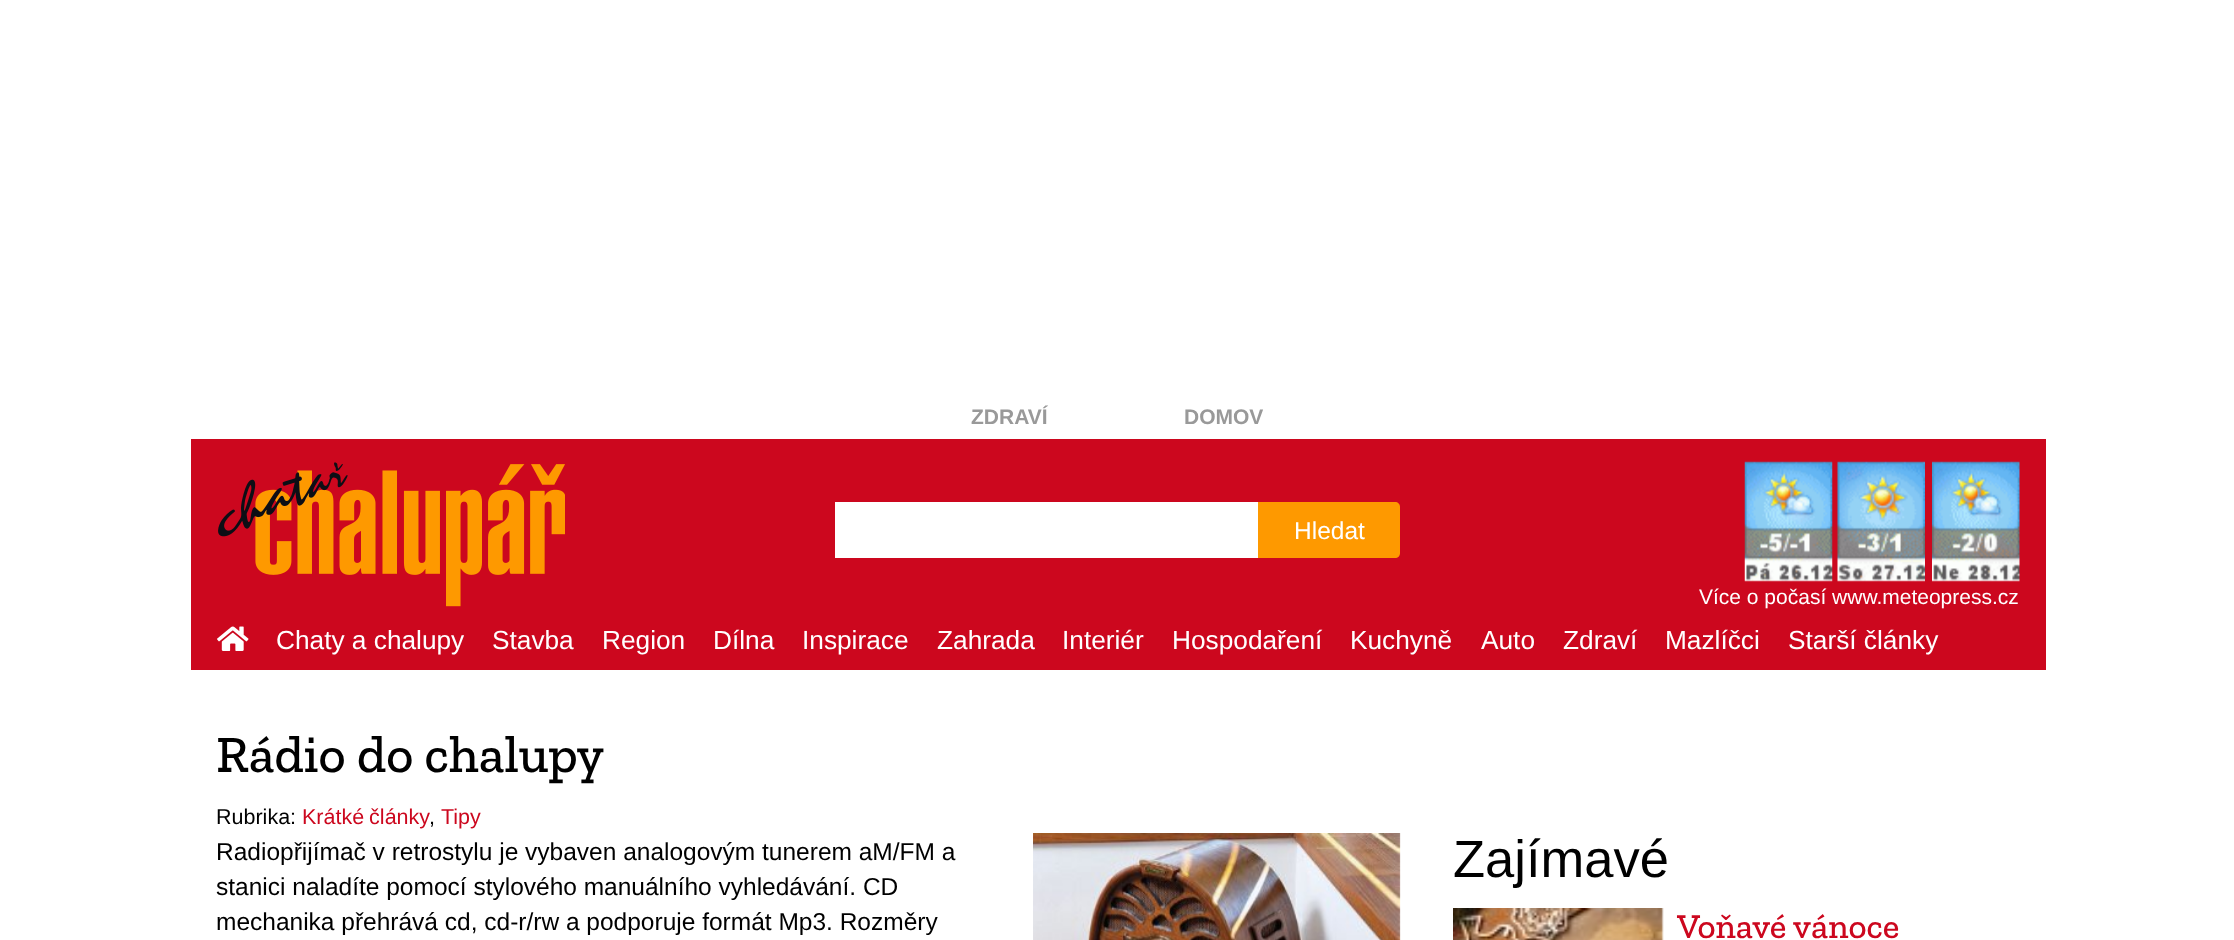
<svg xmlns="http://www.w3.org/2000/svg" width="2234" height="940">
<rect width="100%" height="100%" fill="#fff"/>
<rect x="191" y="439" width="1855" height="231" fill="#cc071e"/>
<text x="971" y="424" style="font-family:Liberation Sans;font-size:21px;font-weight:bold;fill:#999">ZDRAVÍ</text>
<text x="1184" y="424" style="font-family:Liberation Sans;font-size:21px;font-weight:bold;fill:#999">DOMOV</text>
<image x="218" y="462" width="347" height="145" href="media/1.png"/>
<rect x="835" y="502" width="423" height="56" fill="#fff"/>
<path d="M1258 502h137c3 0 5 2 5 5v46c0 3-2 5-5 5h-137z" fill="#fe9900"/>
<text x="1294" y="539" style="font-family:Liberation Sans;font-size:24.5px;fill:#fff">Hledat</text>
<image x="1744" y="461" width="89" height="121" href="media/2.png"/>
<image x="1837" y="461" width="88" height="121" href="media/3.png"/>
<image x="1932" y="461" width="88" height="121" href="media/4.png"/>
<text x="1699" y="604" style="font-family:Liberation Sans;font-size:21px;fill:#fff">Více o počasí www.meteopress.cz</text>
<image x="217" y="626" width="32" height="25" href="media/5.png"/>
<text x="276" y="649" style="font-family:Liberation Sans;font-size:26.25px;fill:#fff">Chaty a chalupy</text>
<text x="492" y="649" style="font-family:Liberation Sans;font-size:26.25px;fill:#fff">Stavba</text>
<text x="602" y="649" style="font-family:Liberation Sans;font-size:26.25px;fill:#fff">Region</text>
<text x="713" y="649" style="font-family:Liberation Sans;font-size:26.25px;fill:#fff">Dílna</text>
<text x="802" y="649" style="font-family:Liberation Sans;font-size:26.25px;fill:#fff">Inspirace</text>
<text x="937" y="649" style="font-family:Liberation Sans;font-size:26.25px;fill:#fff">Zahrada</text>
<text x="1062" y="649" style="font-family:Liberation Sans;font-size:26.25px;fill:#fff">Interiér</text>
<text x="1172" y="649" style="font-family:Liberation Sans;font-size:26.25px;fill:#fff">Hospodaření</text>
<text x="1350" y="649" style="font-family:Liberation Sans;font-size:26.25px;fill:#fff">Kuchyně</text>
<text x="1481" y="649" style="font-family:Liberation Sans;font-size:26.25px;fill:#fff">Auto</text>
<text x="1563" y="649" style="font-family:Liberation Sans;font-size:26.25px;fill:#fff">Zdraví</text>
<text x="1665" y="649" style="font-family:Liberation Sans;font-size:26.25px;fill:#fff">Mazlíčci</text>
<text x="1788" y="649" style="font-family:Liberation Sans;font-size:26.25px;fill:#fff">Starší články</text>
<text x="216" y="772" style="font-family:Zilla Slab;font-size:52.5px;font-weight:500;fill:#000">Rádio do chalupy</text>
<text x="216" y="824" style="font-family:Liberation Sans;font-size:21.5px;fill:#000">Rubrika:</text>
<text x="302" y="824" word-spacing="-1" style="font-family:Liberation Sans;font-size:21.5px;fill:#cc071e">Krátké články</text>
<text x="429" y="824" style="font-family:Liberation Sans;font-size:21.5px;fill:#000">,</text>
<text x="441" y="824" style="font-family:Liberation Sans;font-size:21.5px;fill:#cc071e">Tipy</text>
<text x="216" y="860" style="font-family:Liberation Sans;font-size:24.5px;fill:#000">Radiopřijímač v retrostylu je vybaven analogovým tunerem aM/FM a</text>
<image x="1033" y="833" width="368" height="107" href="media/6.png"/>
<text x="216" y="895" style="font-family:Liberation Sans;font-size:24.5px;fill:#000">stanici naladíte pomocí stylového manuálního vyhledávání. CD</text>
<text x="216" y="930" style="font-family:Liberation Sans;font-size:24.5px;fill:#000">mechanika přehrává cd, cd-r/rw a podporuje formát Mp3. Rozměry</text>
<text x="1453" y="877" style="font-family:Liberation Sans;font-size:52.5px;fill:#000">Zajímavé</text>
<image x="1453" y="908" width="211" height="32" href="media/7.png"/>
<text x="1677" y="938" style="font-family:Zilla Slab;font-size:35px;font-weight:500;fill:#cc071e">Voňavé vánoce</text>
</svg>
